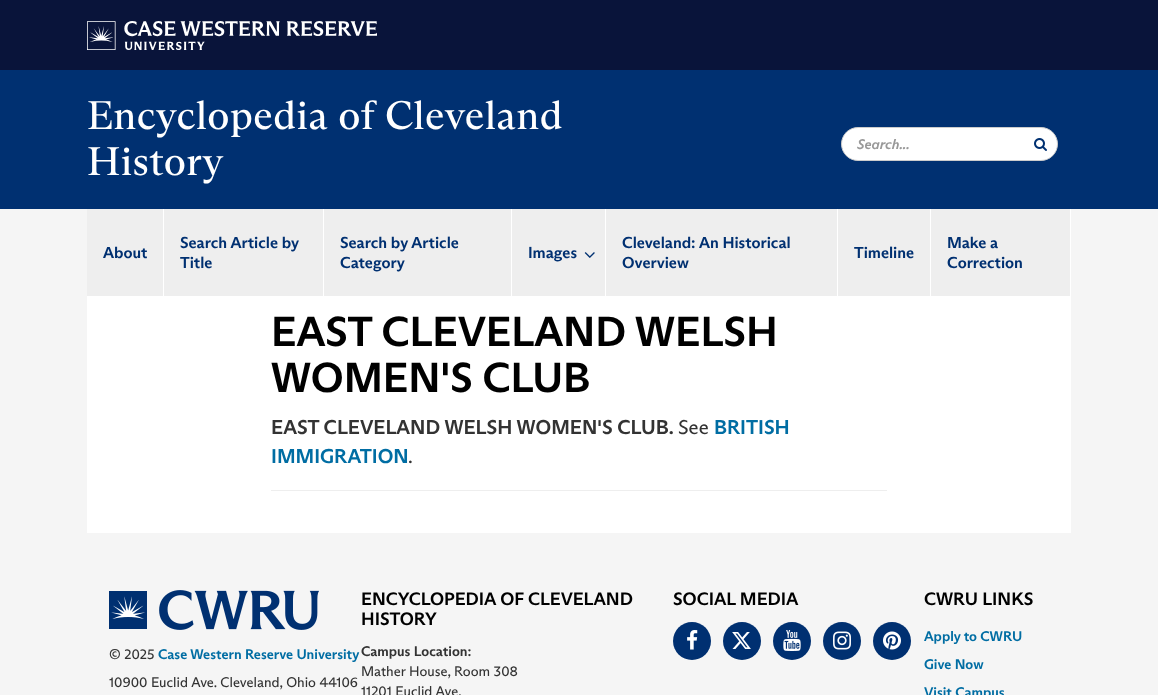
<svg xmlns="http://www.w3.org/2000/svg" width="1158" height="695">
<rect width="100%" height="100%" fill="#f5f5f5"/>
<rect width="1158" height="70" fill="#09143a"/>
<image x="87" y="21" width="290" height="29" href="media/1.png"/>
<rect y="70" width="1158" height="139" fill="#003071"/>
<text x="87" y="129" style="font-family:'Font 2';font-size:40px;letter-spacing:0.4px;fill:#fff">Encyclopedia of Cleveland</text>
<text x="87" y="175" style="font-family:'Font 2';font-size:40px;letter-spacing:0.4px;fill:#fff">History</text>
<rect x="841.5" y="127.5" width="216" height="33" rx="16.5" fill="#fff" stroke="#ccc"/>
<text x="857" y="149" style="font-family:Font;font-size:14px;font-weight:bold;font-style:italic;fill:#999">Search...</text>
<image x="1034" y="138" width="13" height="13" href="media/2.png"/>
<rect x="87" y="209" width="983" height="87" fill="#eee"/>
<rect x="163" y="209" width="1" height="87" fill="#fff"/>
<text x="103" y="258" style="font-family:Font;font-size:16px;font-weight:bold;fill:#003071">About</text>
<rect x="323" y="209" width="1" height="87" fill="#fff"/>
<text x="180" y="248" style="font-family:Font;font-size:16px;font-weight:bold;fill:#003071">Search Article by</text>
<text x="180" y="268" style="font-family:Font;font-size:16px;font-weight:bold;fill:#003071">Title</text>
<rect x="511" y="209" width="1" height="87" fill="#fff"/>
<text x="340" y="248" style="font-family:Font;font-size:16px;font-weight:bold;fill:#003071">Search by Article</text>
<text x="340" y="268" style="font-family:Font;font-size:16px;font-weight:bold;fill:#003071">Category</text>
<rect x="605" y="209" width="1" height="87" fill="#fff"/>
<text x="528" y="258" style="font-family:Font;font-size:16px;font-weight:bold;fill:#003071">Images</text>
<image x="584" y="252" width="11" height="6" href="media/3.png"/>
<rect x="837" y="209" width="1" height="87" fill="#fff"/>
<text x="622" y="248" style="font-family:Font;font-size:16px;font-weight:bold;fill:#003071">Cleveland: An Historical</text>
<text x="622" y="268" style="font-family:Font;font-size:16px;font-weight:bold;fill:#003071">Overview</text>
<rect x="930" y="209" width="1" height="87" fill="#fff"/>
<text x="854" y="258" style="font-family:Font;font-size:16px;font-weight:bold;fill:#003071">Timeline</text>
<rect x="1070" y="209" width="1" height="87" fill="#fff"/>
<text x="947" y="248" style="font-family:Font;font-size:16px;font-weight:bold;fill:#003071">Make a</text>
<text x="947" y="268" style="font-family:Font;font-size:16px;font-weight:bold;fill:#003071">Correction</text>
<rect x="87" y="296" width="984" height="237" fill="#fff"/>
<text x="271" y="346" style="font-family:Font;font-size:42px;font-weight:bold;fill:#000">EAST CLEVELAND WELSH</text>
<text x="271" y="392" style="font-family:Font;font-size:42px;font-weight:bold;fill:#000">WOMEN'S CLUB</text>
<text x="271" y="434" style="font-family:Font;font-size:20px;font-weight:bold;fill:#333">EAST CLEVELAND WELSH WOMEN'S CLUB.</text>
<text x="678" y="434" style="font-family:Font;font-size:20px;fill:#333">See</text>
<text x="714" y="434" style="font-family:Font;font-size:20px;font-weight:bold;fill:#006da3">BRITISH</text>
<text x="271" y="463" style="font-family:Font;font-size:20px;font-weight:bold;fill:#006da3">IMMIGRATION</text>
<text x="408" y="463" style="font-family:Font;font-size:20px;fill:#333">.</text>
<rect x="271" y="490" width="616" height="1" fill="#eee"/>
<image x="109" y="590" width="210" height="40" href="media/4.png"/>
<text x="109" y="659" style="font-family:Font;font-size:14px;fill:#333">© 2025</text>
<text x="158" y="659" style="font-family:Font;font-size:14px;font-weight:bold;fill:#006da3">Case Western Reserve University</text>
<text x="109" y="687" style="font-family:Font;font-size:14px;fill:#333">10900 Euclid Ave. Cleveland, Ohio 44106</text>
<text x="361" y="605" style="font-family:Font;font-size:18px;font-weight:bold;fill:#000">ENCYCLOPEDIA OF CLEVELAND</text>
<text x="361" y="625" style="font-family:Font;font-size:18px;font-weight:bold;fill:#000">HISTORY</text>
<text x="361" y="656" style="font-family:Font;font-size:14px;font-weight:bold;fill:#333">Campus Location:</text>
<text x="361" y="676" style="font-family:Font;font-size:14px;fill:#333">Mather House, Room 308</text>
<text x="361" y="696" style="font-family:Font;font-size:14px;fill:#333">11201 Euclid Ave.</text>
<text x="673" y="605" style="font-family:Font;font-size:18px;font-weight:bold;fill:#000">SOCIAL MEDIA</text>
<circle cx="692" cy="641" r="19" fill="#003071"/>
<image x="687" y="630" width="11" height="20" href="media/5.png"/>
<circle cx="742" cy="641" r="19" fill="#003071"/>
<image x="732" y="632" width="19" height="17" href="media/6.png"/>
<circle cx="792" cy="641" r="19" fill="#003071"/>
<image x="783" y="630" width="18" height="21" href="media/7.png"/>
<circle cx="842" cy="641" r="19" fill="#003071"/>
<image x="833" y="631" width="18" height="19" href="media/8.png"/>
<circle cx="892" cy="641" r="19" fill="#003071"/>
<image x="883" y="631" width="18" height="19" href="media/9.png"/>
<text x="924" y="605" style="font-family:Font;font-size:18px;font-weight:bold;fill:#000">CWRU LINKS</text>
<text x="924" y="641" style="font-family:Font;font-size:14px;font-weight:bold;fill:#006da3">Apply to CWRU</text>
<text x="924" y="669" style="font-family:Font;font-size:14px;font-weight:bold;fill:#006da3">Give Now</text>
<text x="924" y="697" style="font-family:Font;font-size:14px;font-weight:bold;fill:#006da3">Visit Campus</text>
</svg>
